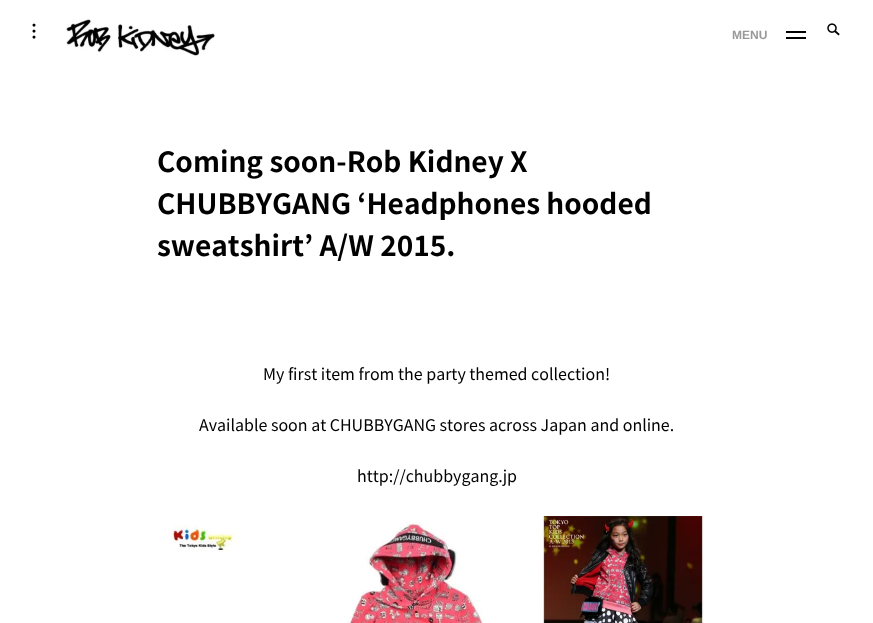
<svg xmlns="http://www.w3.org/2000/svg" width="873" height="623">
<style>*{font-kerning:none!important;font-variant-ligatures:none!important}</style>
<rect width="100%" height="100%" fill="#fff"/>
<image x="66" y="19" width="150" height="38" href="media/1.png"/>
<image x="32" y="23" width="4" height="16" href="media/2.png"/>
<text x="732" y="39" style="font-family:Liberation Sans;font-size:12px;font-weight:bold;fill:#999">MENU</text>
<rect x="786" y="31" width="20" height="2" fill="#000"/>
<rect x="786" y="37" width="20" height="2" fill="#000"/>
<image x="827" y="23" width="13" height="13" href="media/3.png"/>
<text x="157" y="172" style="font-family:Noto Sans JP;font-size:28px;font-weight:bold;fill:#000">Coming soon-Rob Kidney X</text>
<text x="157" y="214" style="font-family:Noto Sans JP;font-size:28px;font-weight:bold;fill:#000">CHUBBYGANG ‘Headphones hooded</text>
<text x="157" y="256" style="font-family:Noto Sans JP;font-size:28px;font-weight:bold;fill:#000">sweatshirt’ A/W 2015.</text>
<text x="263" y="380" style="font-family:Noto Sans JP;font-size:16px;fill:#000">My first item from the party themed collection!</text>
<text x="199" y="431" style="font-family:Noto Sans JP;font-size:16px;fill:#000">Available soon at CHUBBYGANG stores across Japan and online.</text>
<text x="357" y="482" style="font-family:Noto Sans JP;font-size:16px;fill:#000">http://chubbygang.jp</text>
<image x="171" y="521" width="313" height="102" href="media/4.png"/>
<image x="541" y="516" width="163" height="107" href="media/5.png"/>
</svg>
